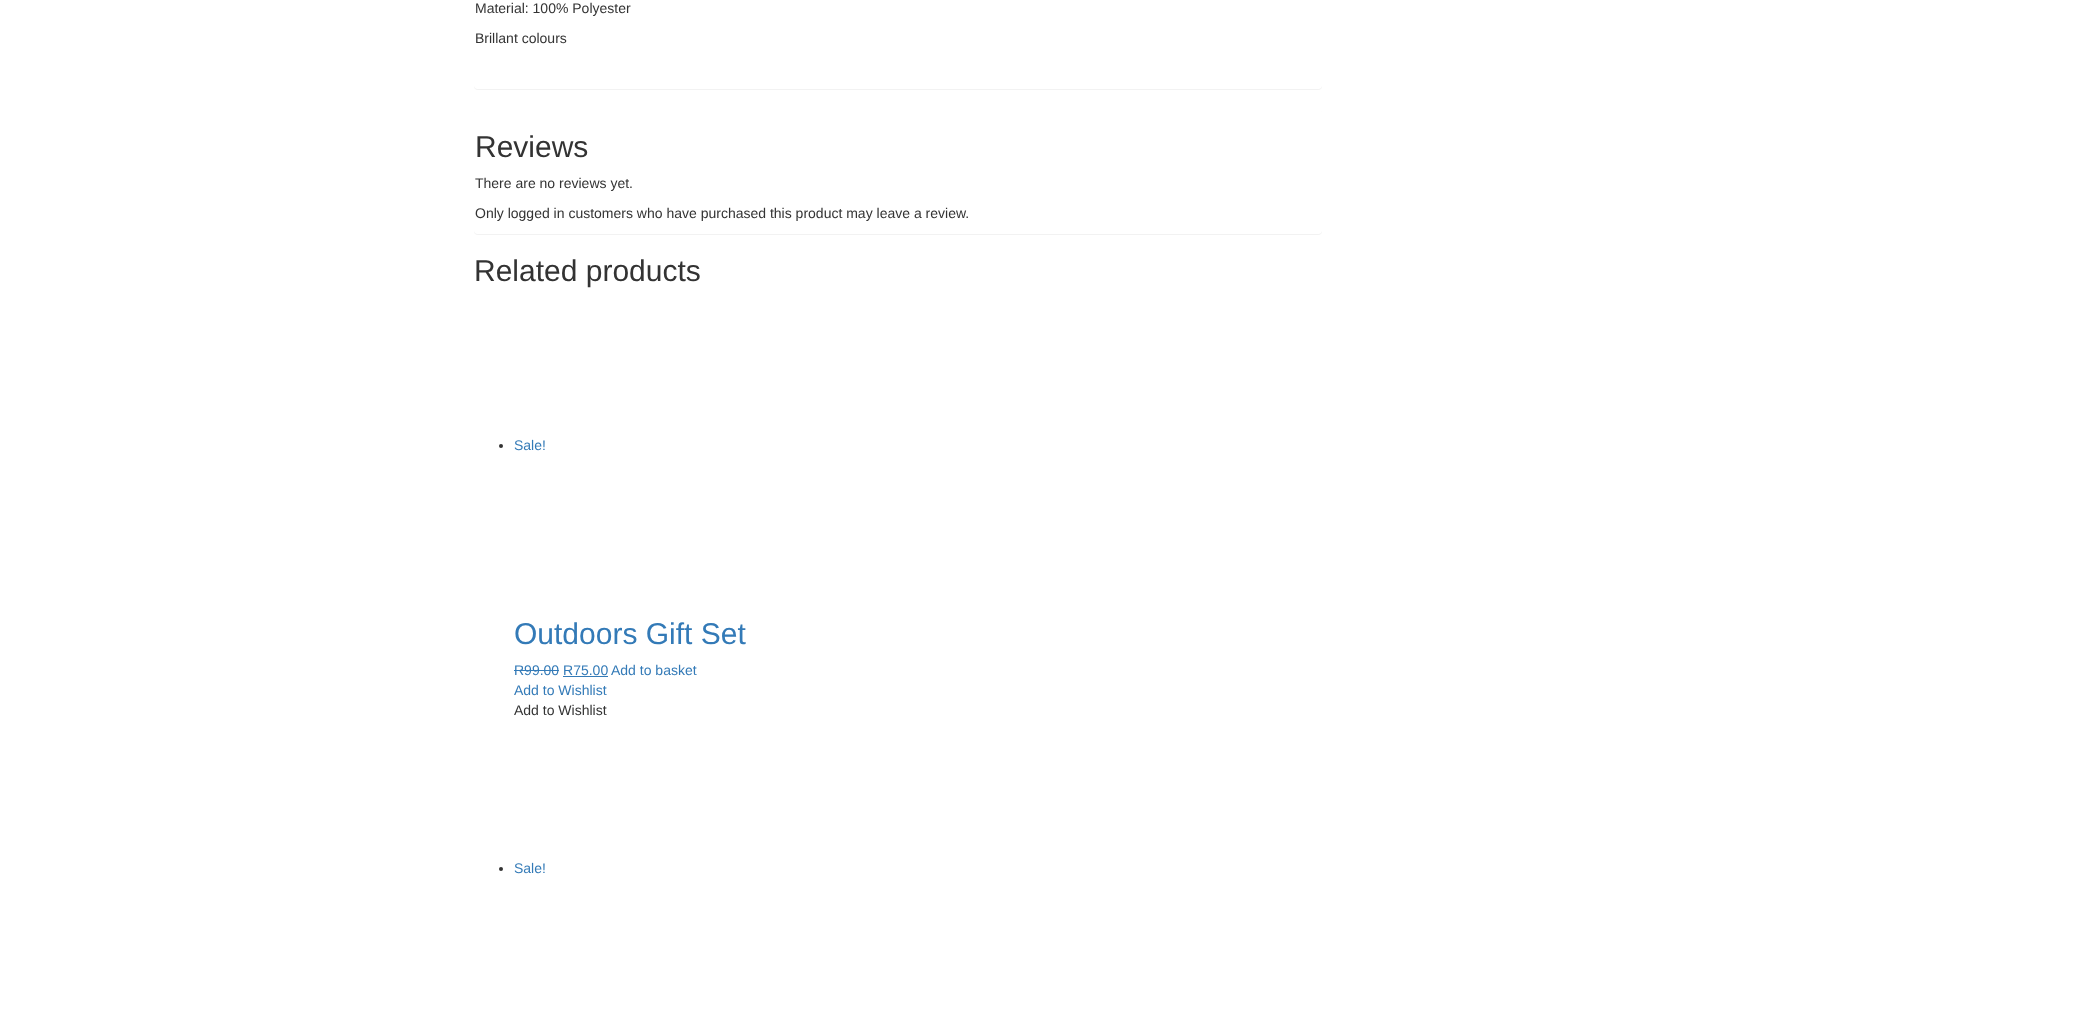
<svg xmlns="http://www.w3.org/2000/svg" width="2088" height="1010">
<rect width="100%" height="100%" fill="#fff"/>
<rect x="474" y="-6" width="848" height="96" rx="4" fill="#0000000d" filter="blur(0.5px)"/>
<rect x="474" y="-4" width="848" height="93" rx="4" fill="#fff"/>
<text x="475" y="13" style="font-family:Liberation Sans;font-size:14px;fill:#333">Material: 100% Polyester</text>
<text x="475" y="43" style="font-family:Liberation Sans;font-size:14px;fill:#333">Brillant colours</text>
<rect x="474" y="110" width="848" height="125" rx="4" fill="#0000000d" filter="blur(0.5px)"/>
<rect x="474" y="109" width="848" height="125" rx="4" fill="#fff"/>
<text x="475" y="157" style="font-family:Liberation Sans;font-size:30px;fill:#333">Reviews</text>
<text x="475" y="188" style="font-family:Liberation Sans;font-size:14px;fill:#333">There are no reviews yet.</text>
<text x="475" y="218" style="font-family:Liberation Sans;font-size:14px;fill:#333">Only logged in customers who have purchased this product may leave a review.</text>
<text x="474" y="281" style="font-family:Liberation Sans;font-size:30px;fill:#333">Related products</text>
<circle cx="501" cy="446" r="2" fill="#333"/>
<text x="514" y="450" style="font-family:Liberation Sans;font-size:14px;fill:#337ab7">Sale!</text>
<text x="514" y="644" style="font-family:Liberation Sans;font-size:30px;fill:#337ab7">Outdoors Gift Set</text>
<text x="514" y="675" style="font-family:Liberation Sans;font-size:14px;fill:#337ab7">R99.00 R75.00</text>
<rect x="514" y="670" width="45" height="1" fill="#337ab7"/>
<rect x="563" y="676" width="45" height="1" fill="#337ab7"/>
<text x="611" y="675" style="font-family:Liberation Sans;font-size:14px;fill:#337ab7">Add to basket</text>
<text x="514" y="695" style="font-family:Liberation Sans;font-size:14px;fill:#337ab7">Add to Wishlist</text>
<text x="514" y="715" style="font-family:Liberation Sans;font-size:14px;fill:#333">Add to Wishlist</text>
<circle cx="501" cy="869" r="2" fill="#333"/>
<text x="514" y="873" style="font-family:Liberation Sans;font-size:14px;fill:#337ab7">Sale!</text>
</svg>
